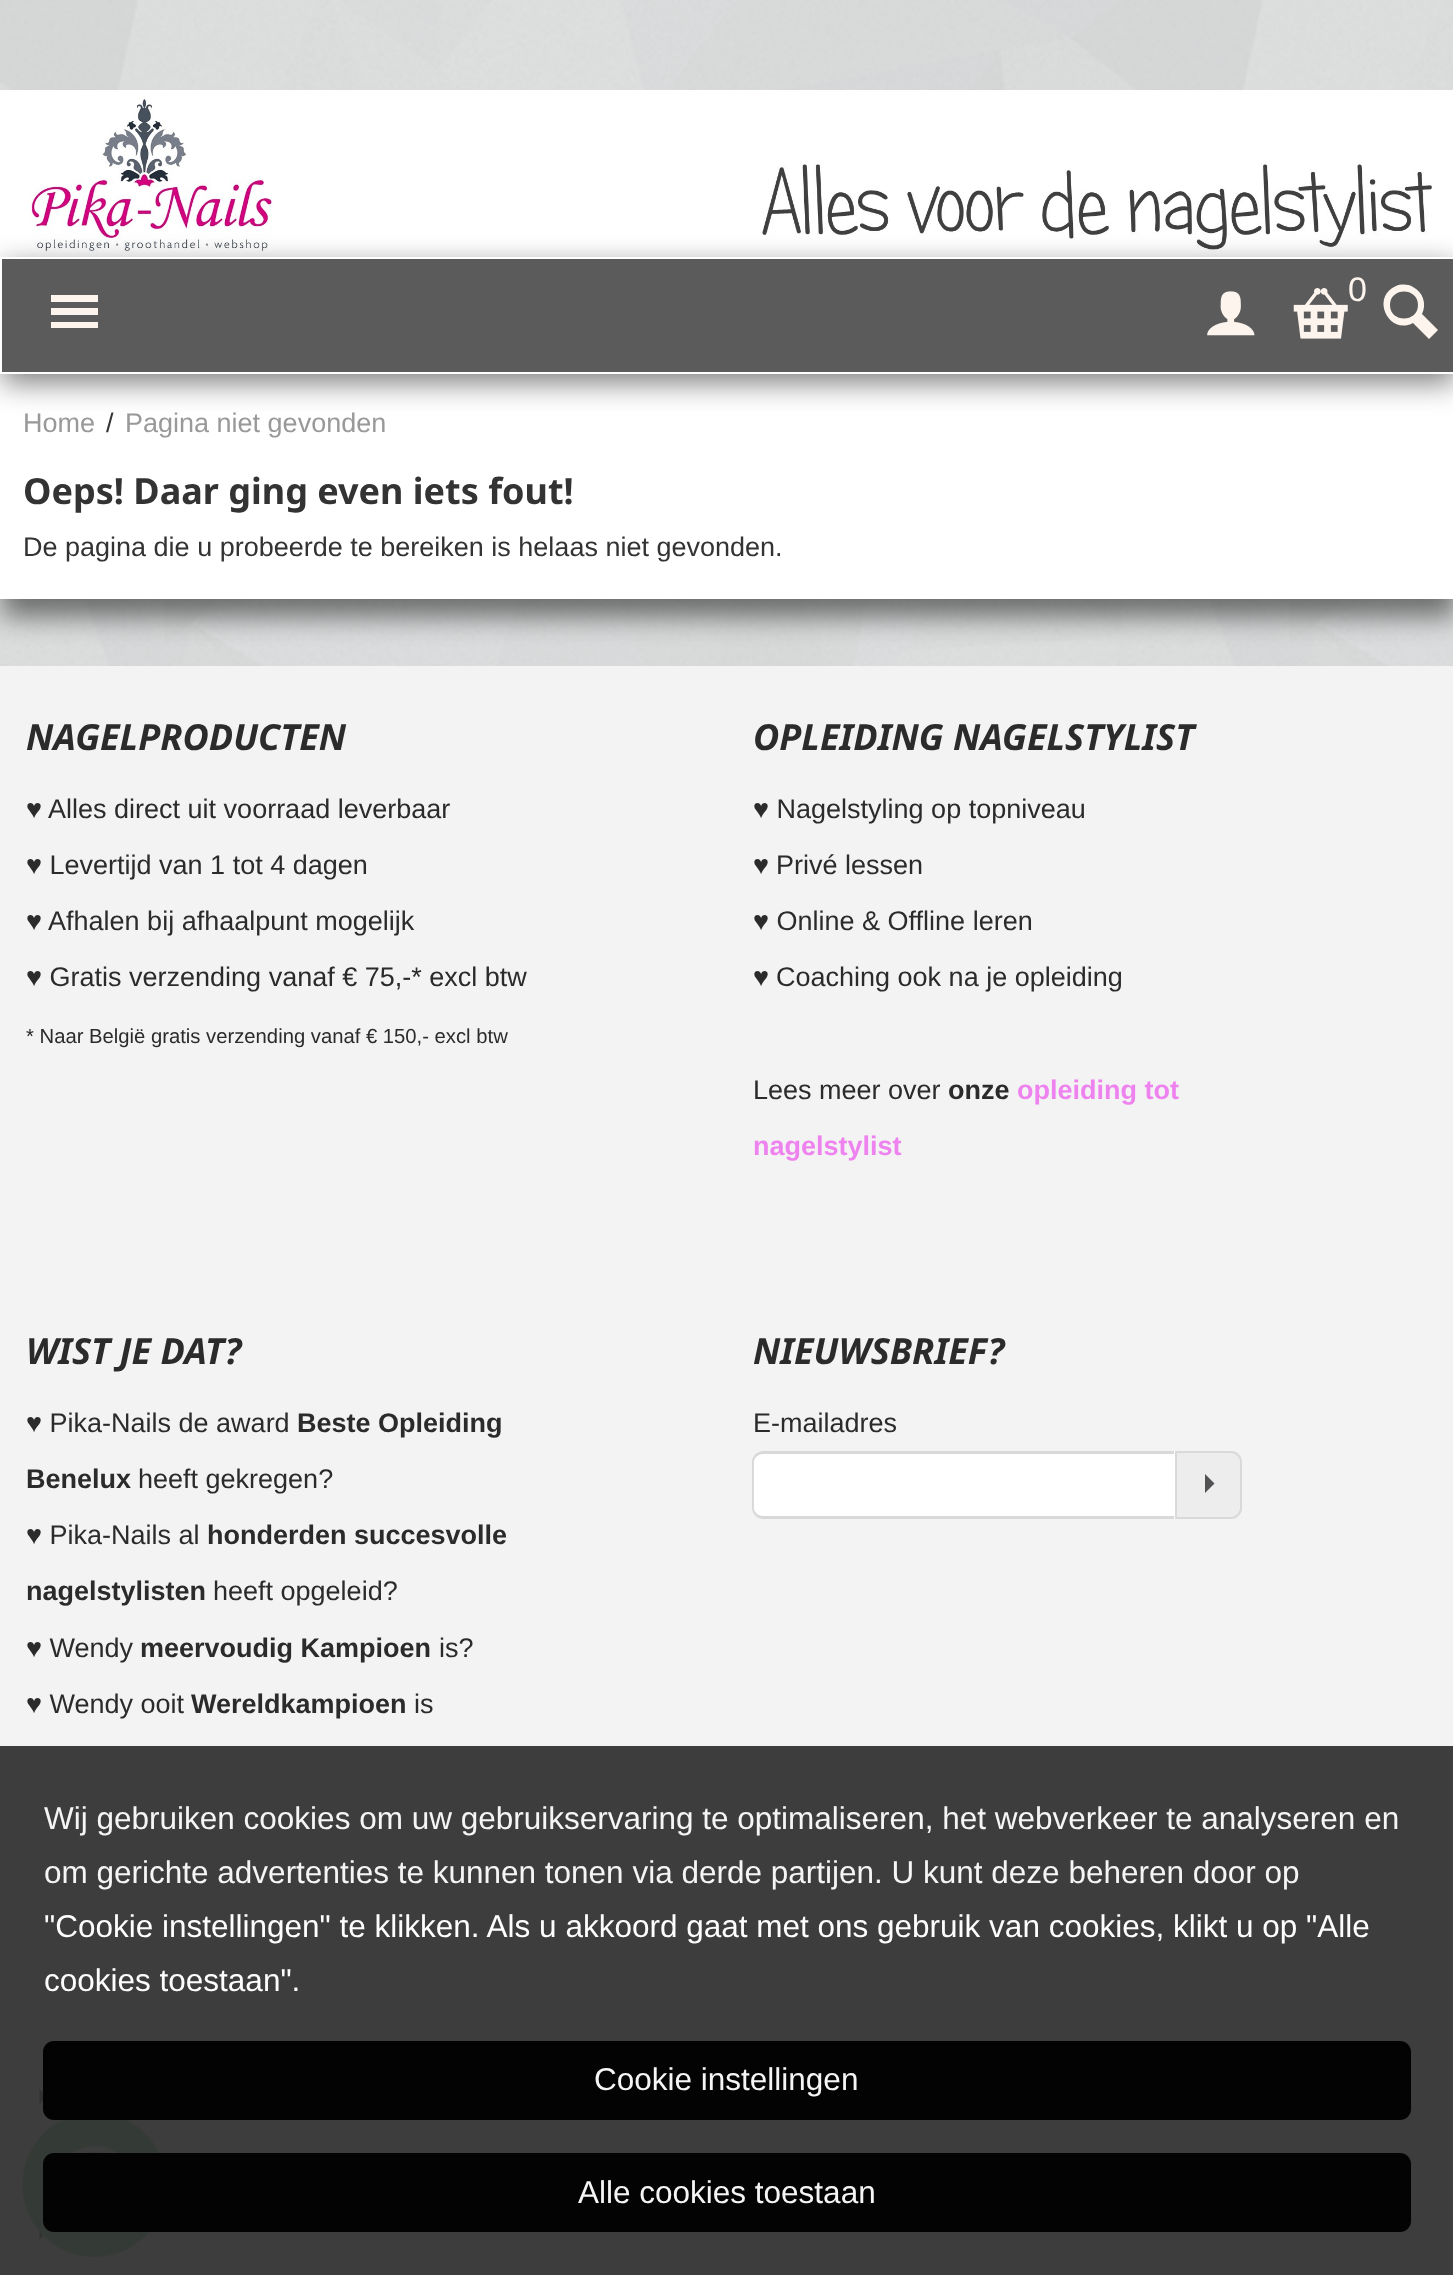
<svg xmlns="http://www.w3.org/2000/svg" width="1453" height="2275">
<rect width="100%" height="100%" fill="#fff"/>
<image x="0" y="0" width="1453" height="666" href="media/1.png"/>
<rect y="90" width="1453" height="167" fill="#fff"/>
<image x="28" y="99" width="1405" height="153" href="media/2.png"/>
<rect x="2" y="392" width="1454" height="225" fill="#00000080" filter="blur(13.5px)"/>
<rect y="374" width="1453" height="225" fill="#fff"/>
<rect x="2" y="266" width="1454" height="117" fill="#00000080" filter="blur(14.5px)"/>
<rect x="1" y="258" width="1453" height="115" fill="#5c5b5b" stroke="#fff" stroke-width="2"/>
<path d="M51 295h47v7h-47zm0 13h47v7h-47zm0 14h47v6h-47z" fill="#fcf4ed"/>
<image x="1207" y="291" width="48" height="45" href="media/3.png"/>
<image x="1293" y="288" width="55" height="51" href="media/4.png"/>
<text x="1348" y="301" style="font-family:Liberation Sans;font-size:34px;fill:#fcf4ed">0</text>
<path d="M1438 330l-16-16c5-10 1-22-9-27c-5-3-12-3-17-1c-26 11-7 50 17 37l16 16zm-48-25c0-18 28-18 28 0c0 18-28 18-28 0z" fill="#fcf4ed"/>
<text x="23" y="432" style="font-family:Liberation Sans;font-size:27px;fill:#999">Home</text>
<text x="106" y="432" style="font-family:Liberation Sans;font-size:27px;fill:#333">/</text>
<text x="125" y="432" style="font-family:Liberation Sans;font-size:27px;fill:#999">Pagina niet gevonden</text>
<text x="23" y="504" style="font-family:Noto Sans;font-size:36px;font-weight:bold;fill:#333">Oeps! Daar ging even iets fout!</text>
<text x="23" y="556" style="font-family:Liberation Sans;font-size:27px;fill:#333">De pagina die u probeerde te bereiken is helaas niet gevonden.</text>
<rect y="666" width="1453" height="1609" fill="#f3f3f3"/>
<text x="26" y="750" style="font-family:Noto Sans;font-size:36px;font-weight:bold;font-style:italic;fill:#2b2b2b">NAGELPRODUCTEN</text>
<text x="26" y="818" style="font-family:Liberation Sans;font-size:27px;fill:#2b2b2b">♥ Alles direct uit voorraad leverbaar</text>
<text x="26" y="874" style="font-family:Liberation Sans;font-size:27px;fill:#2b2b2b">♥ Levertijd van 1 tot 4 dagen</text>
<text x="26" y="930" style="font-family:Liberation Sans;font-size:27px;fill:#2b2b2b">♥ Afhalen bij afhaalpunt mogelijk</text>
<text x="26" y="986" style="font-family:Liberation Sans;font-size:27px;fill:#2b2b2b">♥ Gratis verzending vanaf € 75,-* excl btw</text>
<text x="26" y="1043" style="font-family:Liberation Sans;font-size:20.25px;fill:#2b2b2b">* Naar België gratis verzending vanaf € 150,- excl btw</text>
<text x="753" y="750" style="font-family:Noto Sans;font-size:36px;font-weight:bold;font-style:italic;fill:#2b2b2b">OPLEIDING NAGELSTYLIST</text>
<text x="753" y="818" style="font-family:Liberation Sans;font-size:27px;fill:#2b2b2b">♥ Nagelstyling op topniveau</text>
<text x="753" y="874" style="font-family:Liberation Sans;font-size:27px;font-weight:bold;fill:#2b2b2b">♥</text>
<text x="776" y="874" style="font-family:Liberation Sans;font-size:27px;fill:#2b2b2b">Privé lessen</text>
<text x="753" y="930" style="font-family:Liberation Sans;font-size:27px;fill:#2b2b2b">♥ Online &amp; Offline leren</text>
<text x="753" y="986" style="font-family:Liberation Sans;font-size:27px;font-weight:bold;fill:#2b2b2b">♥</text>
<text x="776" y="986" style="font-family:Liberation Sans;font-size:27px;fill:#2b2b2b">Coaching ook na je opleiding</text>
<text x="753" y="1099" style="font-family:Liberation Sans;font-size:27px;fill:#2b2b2b">Lees meer over</text>
<text x="948" y="1099" style="font-family:Liberation Sans;font-size:27px;font-weight:bold;fill:#2b2b2b">onze</text>
<text x="1017" y="1099" style="font-family:Liberation Sans;font-size:27px;font-weight:bold;fill:#ee82ee">opleiding tot</text>
<text x="753" y="1155" style="font-family:Liberation Sans;font-size:27px;font-weight:bold;fill:#ee82ee">nagelstylist</text>
<text x="26" y="1364" style="font-family:Noto Sans;font-size:36px;font-weight:bold;font-style:italic;fill:#2b2b2b">WIST JE DAT?</text>
<text x="26" y="1432" style="font-family:Liberation Sans;font-size:27px;fill:#2b2b2b">♥ Pika-Nails de award</text>
<text x="297" y="1432" style="font-family:Liberation Sans;font-size:27px;font-weight:bold;fill:#2b2b2b">Beste Opleiding</text>
<text x="26" y="1488" style="font-family:Liberation Sans;font-size:27px;font-weight:bold;fill:#2b2b2b">Benelux</text>
<text x="138" y="1488" style="font-family:Liberation Sans;font-size:27px;fill:#2b2b2b">heeft gekregen?</text>
<text x="26" y="1544" style="font-family:Liberation Sans;font-size:27px;fill:#2b2b2b">♥ Pika-Nails al</text>
<text x="207" y="1544" style="font-family:Liberation Sans;font-size:27px;font-weight:bold;fill:#2b2b2b">honderden succesvolle</text>
<text x="26" y="1600" style="font-family:Liberation Sans;font-size:27px;font-weight:bold;fill:#2b2b2b">nagelstylisten</text>
<text x="213" y="1600" style="font-family:Liberation Sans;font-size:27px;fill:#2b2b2b">heeft opgeleid?</text>
<text x="26" y="1657" style="font-family:Liberation Sans;font-size:27px;fill:#2b2b2b">♥ Wendy</text>
<text x="140" y="1657" style="font-family:Liberation Sans;font-size:27px;font-weight:bold;fill:#2b2b2b">meervoudig Kampioen</text>
<text x="439" y="1657" style="font-family:Liberation Sans;font-size:27px;fill:#2b2b2b">is?</text>
<text x="26" y="1713" style="font-family:Liberation Sans;font-size:27px;fill:#2b2b2b">♥ Wendy ooit</text>
<text x="191" y="1713" style="font-family:Liberation Sans;font-size:27px;font-weight:bold;fill:#2b2b2b">Wereldkampioen</text>
<text x="414" y="1713" style="font-family:Liberation Sans;font-size:27px;fill:#2b2b2b">is</text>
<text x="753" y="1364" style="font-family:Noto Sans;font-size:36px;font-weight:bold;font-style:italic;fill:#2b2b2b">NIEUWSBRIEF?</text>
<text x="753" y="1432" style="font-family:Liberation Sans;font-size:27px;fill:#2b2b2b">E-mailadres</text>
<path d="M763 1451h412v68h-412c-6 0-11-5-11-11v-46c0-6 5-11 11-11z" fill="#fff"/>
<path d="M763 1451h411v68h-411c-6 0-11-5-11-11v-46c0-6 5-11 11-11zm0 3h411v62h-411c-5 0-9-4-9-8v-46c0-4 4-8 9-8z" fill="#d9d9d9" fill-rule="evenodd"/>
<path d="M1176 1452h55c5.5 0 10 4.5 10 10v46c0 5.5-4.5 10-10 10h-55z" fill="#ededed" stroke="#d9d9d9" stroke-width="2"/>
<path d="M1205 1493l9.5-9.5l-9.5-9.5z" fill="#525254"/>
<path d="M39.5 2104l7.5-7.5l-7.5-7.5z" fill="#2b2b2b"/>
<path d="M39.5 2239l7.5-7.5l-7.5-7.5z" fill="#2b2b2b"/>
<image x="22" y="2112" width="145" height="145" href="media/5.png"/>
<rect y="1746" width="1453" height="529" fill="#333333f2"/>
<text x="44" y="1829" style="font-family:Liberation Sans;font-size:31.5px;fill:#f5f5f5">Wij gebruiken cookies om uw gebruikservaring te optimaliseren, het webverkeer te analyseren en</text>
<text x="44" y="1883" style="font-family:Liberation Sans;font-size:31.5px;fill:#f5f5f5">om gerichte advertenties te kunnen tonen via derde partijen. U kunt deze beheren door op</text>
<text x="44" y="1937" style="font-family:Liberation Sans;font-size:31.5px;fill:#fefefe">"Cookie instellingen" te klikken. Als u akkoord gaat met ons gebruik van cookies, klikt u op "Alle</text>
<text x="44" y="1991" style="font-family:Liberation Sans;font-size:31.5px;fill:#fefefe">cookies toestaan".</text>
<rect x="43" y="2041" width="1368" height="79" rx="11" fill="#000000f2"/>
<text x="594" y="2090" style="font-family:Liberation Sans;font-size:31.5px;fill:#f5f5f5">Cookie instellingen</text>
<rect x="43" y="2153" width="1368" height="79" rx="11" fill="#000000f2"/>
<text x="578" y="2203" style="font-family:Liberation Sans;font-size:31.5px;fill:#f5f5f5">Alle cookies toestaan</text>
</svg>
